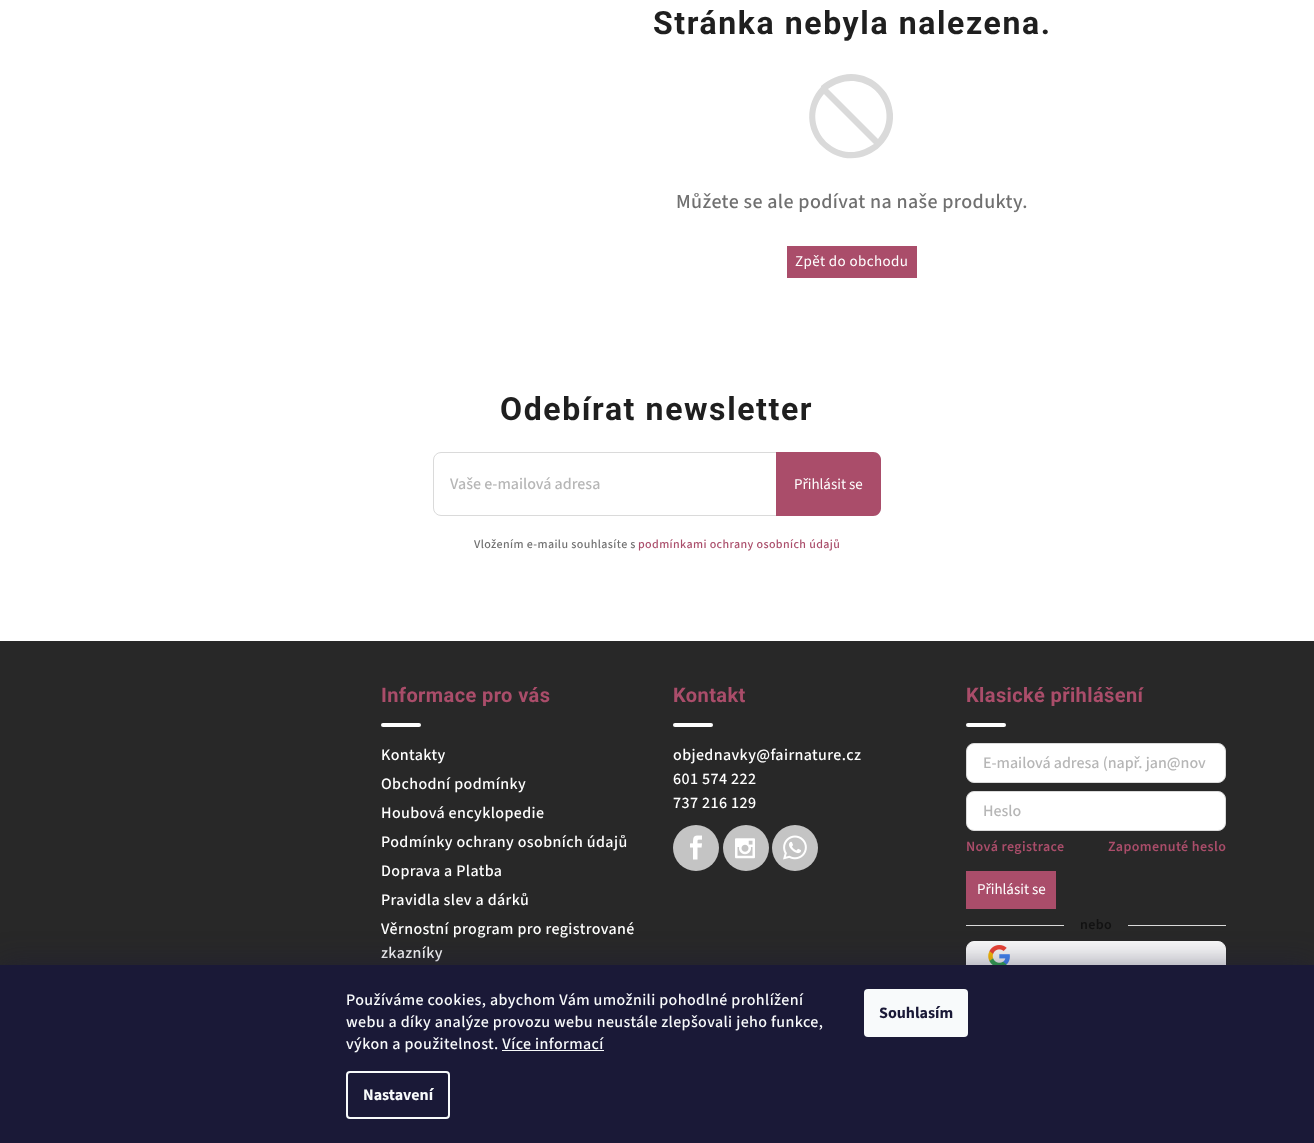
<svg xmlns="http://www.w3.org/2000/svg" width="1314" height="1143">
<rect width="100%" height="100%" fill="#fff"/>
<text x="653" y="34" style="font-family:Roboto;font-size:32px;font-weight:bold;letter-spacing:1.6px;fill:#1f1f1f">Stránka nebyla nalezena.</text>
<path d="M851 74c-11 0-22 5-30 12v1c-16 17-16 44 2 60c28 26 72 4 70-33c-1-10-4-19-11-26c-8-9-19-14-31-14zm0 7c30 0 47 35 27 58l-50-50c7-5 15-8 23-8zm-27 13l50 50c-6 4-13 7-20 8c-31 2-51-34-30-58z" fill="#dadada"/>
<text x="676" y="208" style="font-family:'Source Sans 3';font-size:20px;font-weight:500;letter-spacing:0.4px;fill:#707070">Můžete se ale podívat na naše produkty.</text>
<rect x="787" y="246" width="130" height="32" fill="#aa4d6a"/>
<text x="795" y="266" style="font-family:'Source Sans 3';font-size:15px;letter-spacing:0.4px;fill:#fff">Zpět do obchodu</text>
<text x="500" y="420" style="font-family:Roboto;font-size:32px;font-weight:bold;letter-spacing:1.6px;fill:#1f1f1f">Odebírat newsletter</text>
<rect x="433.5" y="452.5" width="447" height="63" rx="7.5" fill="none" stroke="#dadada"/>
<text x="450" y="489" style="font-family:'Source Sans 3';font-size:16px;font-weight:500;fill:#b6b6b6">Vaše e-mailová adresa</text>
<path d="M776 452h97c4.5 0 8 3.5 8 8v48c0 4.5-3.5 8-8 8h-97z" fill="#aa4d6a"/>
<text x="794" y="489" style="font-family:'Source Sans 3';font-size:15px;fill:#fff">Přihlásit se</text>
<text x="474" y="548" style="font-family:'Source Sans 3';font-size:12px;font-weight:500;letter-spacing:0.4px;fill:#707070">Vložením e-mailu souhlasíte s</text>
<text x="638" y="548" style="font-family:'Source Sans 3';font-size:12px;font-weight:500;letter-spacing:0.4px;fill:#aa4d6a">podmínkami ochrany osobních údajů</text>
<rect y="641" width="1314" height="324" fill="#282828"/>
<text x="381" y="702" style="font-family:Roboto;font-size:20px;font-weight:bold;letter-spacing:0.4px;fill:#aa4d6a">Informace pro vás</text>
<rect x="381" y="723" width="40" height="4" rx="2" fill="#fff"/>
<text x="381" y="760" style="font-family:'Source Sans 3';font-size:16px;font-weight:500;letter-spacing:0.4px;fill:#fff">Kontakty</text>
<text x="381" y="789" style="font-family:'Source Sans 3';font-size:16px;font-weight:500;letter-spacing:0.4px;fill:#fff">Obchodní podmínky</text>
<text x="381" y="818" style="font-family:'Source Sans 3';font-size:16px;font-weight:500;letter-spacing:0.4px;fill:#fff">Houbová encyklopedie</text>
<text x="381" y="847" style="font-family:'Source Sans 3';font-size:16px;font-weight:500;letter-spacing:0.4px;fill:#fff">Podmínky ochrany osobních údajů</text>
<text x="381" y="876" style="font-family:'Source Sans 3';font-size:16px;font-weight:500;letter-spacing:0.4px;fill:#fff">Doprava a Platba</text>
<text x="381" y="905" style="font-family:'Source Sans 3';font-size:16px;font-weight:500;letter-spacing:0.4px;fill:#fff">Pravidla slev a dárků</text>
<text x="381" y="934" style="font-family:'Source Sans 3';font-size:16px;font-weight:500;letter-spacing:0.4px;fill:#fff">Věrnostní program pro registrované</text>
<text x="381" y="958" style="font-family:'Source Sans 3';font-size:16px;font-weight:500;letter-spacing:0.4px;fill:#fff">zkazníky</text>
<text x="673" y="702" style="font-family:Roboto;font-size:20px;font-weight:bold;letter-spacing:0.4px;fill:#aa4d6a">Kontakt</text>
<rect x="673" y="723" width="40" height="4" rx="2" fill="#fff"/>
<text x="673" y="760" style="font-family:'Source Sans 3';font-size:16px;font-weight:500;letter-spacing:0.4px;fill:#fff">objednavky@fairnature.cz</text>
<text x="673" y="784" style="font-family:'Source Sans 3';font-size:16px;font-weight:500;letter-spacing:0.4px;fill:#fff">601 574 222</text>
<text x="673" y="808" style="font-family:'Source Sans 3';font-size:16px;font-weight:500;letter-spacing:0.4px;fill:#fff">737 216 129</text>
<circle cx="696" cy="848" r="23" fill="#c4c4c4"/>
<image x="690" y="835" width="12" height="25" href="media/1.png"/>
<circle cx="746" cy="848" r="23" fill="#c4c4c4"/>
<image x="735" y="838" width="20" height="21" href="media/2.png"/>
<circle cx="795" cy="848" r="23" fill="#c4c4c4"/>
<image x="783" y="835" width="24" height="25" href="media/3.png"/>
<text x="966" y="702" style="font-family:Roboto;font-size:20px;font-weight:bold;letter-spacing:0.4px;fill:#aa4d6a">Klasické přihlášení</text>
<rect x="966" y="723" width="40" height="4" rx="2" fill="#fff"/>
<rect x="966.5" y="743.5" width="259" height="39" rx="7.5" fill="#fff" stroke="#dadada"/>
<text x="983" y="768" style="font-family:'Source Sans 3';font-size:16px;font-weight:500;fill:#b6b6b6">E-mailová adresa (např. jan@nov</text>
<rect x="966.5" y="791.5" width="259" height="39" rx="7.5" fill="#fff" stroke="#dadada"/>
<text x="983" y="816" style="font-family:'Source Sans 3';font-size:16px;font-weight:500;fill:#b6b6b6">Heslo</text>
<text x="966" y="851" style="font-family:'Source Sans 3';font-size:14px;font-weight:600;letter-spacing:0.4px;fill:#aa4d6a">Nová registrace</text>
<text x="1108" y="851" style="font-family:'Source Sans 3';font-size:14px;font-weight:600;letter-spacing:0.4px;fill:#aa4d6a">Zapomenuté heslo</text>
<rect x="966" y="871" width="90" height="38" fill="#aa4d6a"/>
<text x="977" y="894" style="font-family:'Source Sans 3';font-size:15px;fill:#fff">Přihlásit se</text>
<rect x="966" y="925" width="98" height="1" fill="#dadada"/>
<text x="1080" y="929" style="font-family:'Source Sans 3';font-size:14px;font-weight:600;letter-spacing:0.4px;fill:#121212">nebo</text>
<rect x="1128" y="925" width="98" height="1" fill="#dadada"/>
<rect x="966.5" y="941.5" width="259" height="31" rx="7.5" fill="#f9f9f9" stroke="#f9f9f9"/>
<image x="988" y="945" width="22" height="20" href="media/4.png"/>
<rect y="965" width="1314" height="178" fill="#1b193980" filter="blur(15px)"/>
<rect y="965" width="1314" height="178" fill="#1a1937"/>
<text x="346" y="1005" style="font-family:'Source Sans 3';font-size:16px;font-weight:500;letter-spacing:0.4px;fill:#f8fafb">Používáme cookies, abychom Vám umožnili pohodlné prohlížení</text>
<text x="346" y="1027" style="font-family:'Source Sans 3';font-size:16px;font-weight:500;letter-spacing:0.4px;fill:#f8fafb">webu a díky analýze provozu webu neustále zlepšovali jeho funkce,</text>
<text x="346" y="1049" style="font-family:'Source Sans 3';font-size:16px;font-weight:500;letter-spacing:0.4px;fill:#f8fafb">výkon a použitelnost. Více informací</text>
<rect x="502" y="1050" width="102" height="1" fill="#f8fafb"/>
<rect x="347" y="1072" width="102" height="46" rx="3" fill="none" stroke="#f8fafb" stroke-width="2"/>
<text x="363" y="1100" style="font-family:'Source Sans 3';font-size:16px;font-weight:bold;fill:#f8fafb">Nastavení</text>
<rect x="864" y="989" width="104" height="48" rx="4" fill="#f8fafb"/>
<text x="879" y="1018" style="font-family:'Source Sans 3';font-size:16px;font-weight:bold;fill:#1a1937">Souhlasím</text>
</svg>
